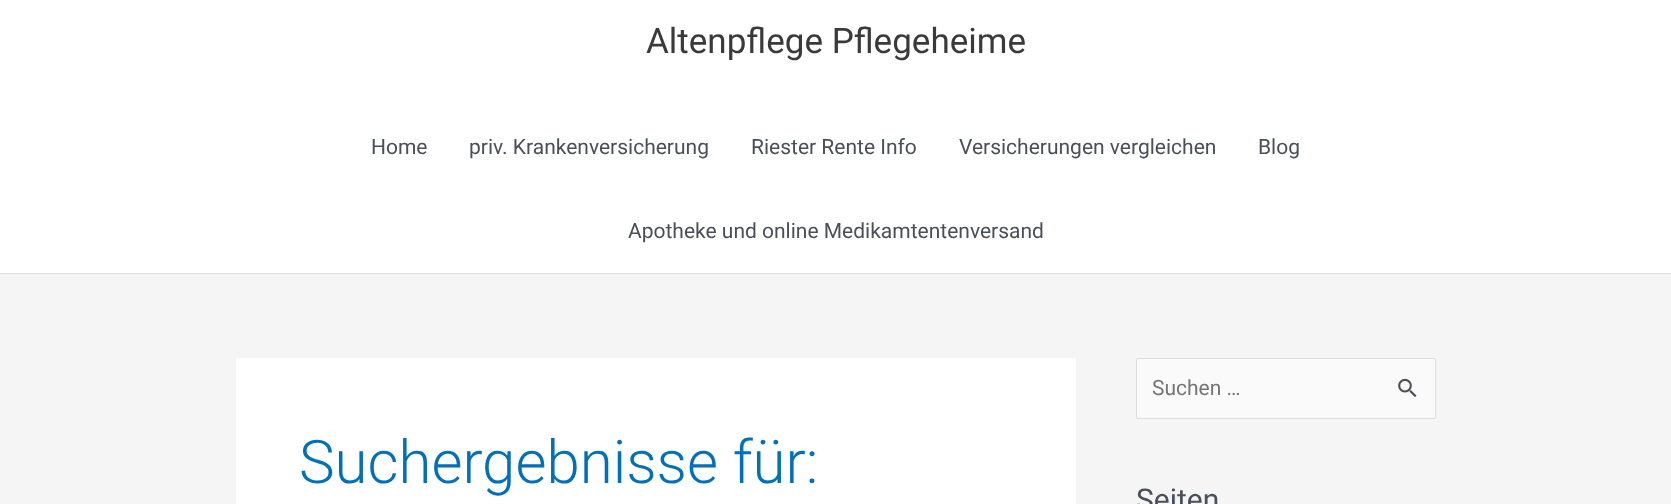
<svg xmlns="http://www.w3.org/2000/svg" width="1671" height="504">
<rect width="100%" height="100%" fill="#f5f5f5"/>
<rect width="1671" height="273" fill="#fff"/>
<rect y="273" width="1671" height="1" fill="#ddd"/>
<text x="646" y="53" style="font-family:Roboto;font-size:35px;fill:#3a3a3a">Altenpflege Pflegeheime</text>
<text x="371" y="154" style="font-family:Roboto;font-size:21px;fill:#4b4f58">Home</text>
<text x="469" y="154" style="font-family:Roboto;font-size:21px;fill:#4b4f58">priv. Krankenversicherung</text>
<text x="751" y="154" style="font-family:Roboto;font-size:21px;fill:#4b4f58">Riester Rente Info</text>
<text x="959" y="154" style="font-family:Roboto;font-size:21px;fill:#4b4f58">Versicherungen vergleichen</text>
<text x="1258" y="154" style="font-family:Roboto;font-size:21px;fill:#4b4f58">Blog</text>
<text x="628" y="238" style="font-family:Roboto;font-size:21px;fill:#4b4f58">Apotheke und online Medikamtentenversand</text>
<rect x="236" y="358" width="840" height="146" fill="#fff"/>
<text x="299" y="483" style="font-family:Roboto;font-size:60px;font-weight:300;fill:#0170b9">Suchergebnisse für:</text>
<rect x="1136.5" y="358.5" width="299" height="60" rx="1.5" fill="#fafafa" stroke="#ddd"/>
<text x="1152" y="395" style="font-family:Roboto;font-size:21px;fill:#757575">Suchen …</text>
<image x="1398" y="378" width="19" height="20" href="media/1.png"/>
<text x="1136" y="510" style="font-family:Roboto;font-size:30px;fill:#4b4f58">Seiten</text>
</svg>
